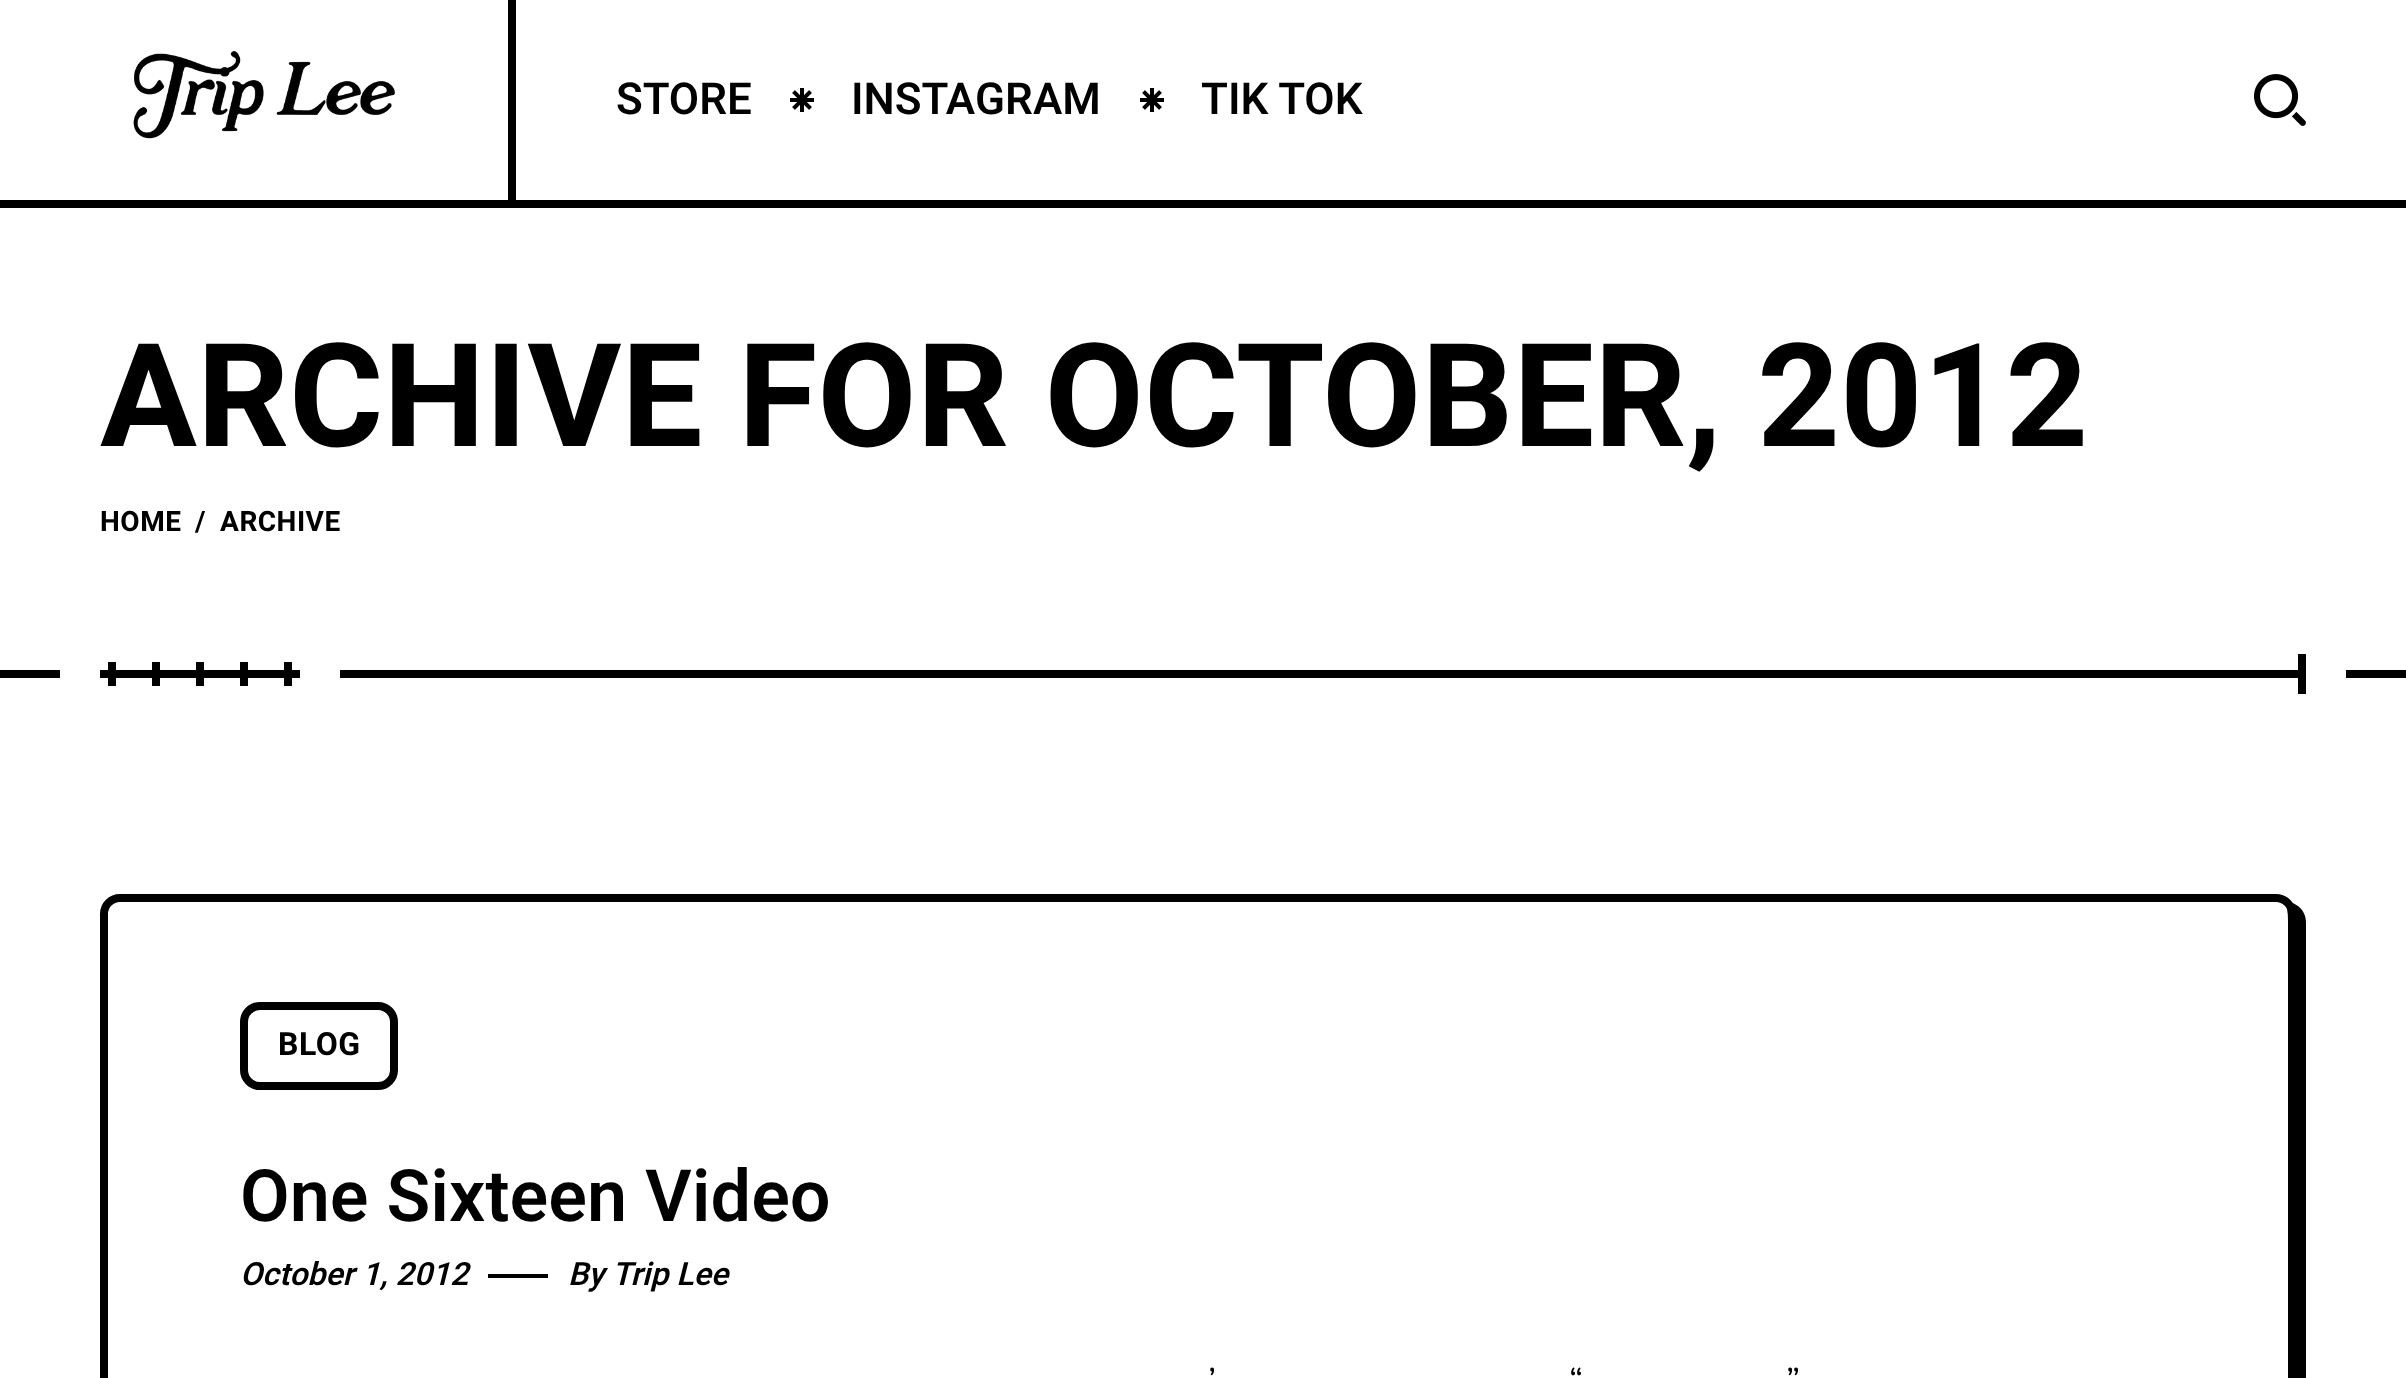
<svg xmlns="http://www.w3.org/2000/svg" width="2406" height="1378">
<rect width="100%" height="100%" fill="#fff"/>
<rect y="200" width="2406" height="8" fill="#000"/>
<rect x="508" width="8" height="200" fill="#000"/>
<image x="133" y="51" width="262" height="88" href="media/1.png"/>
<text x="616" y="114" style="font-family:Heebo;font-size:44px;font-weight:600;fill:#000">STORE</text>
<image x="790" y="88" width="24" height="24" href="media/2.png"/>
<text x="851" y="114" style="font-family:Heebo;font-size:44px;font-weight:600;fill:#000">INSTAGRAM</text>
<image x="1140" y="88" width="24" height="24" href="media/2.png"/>
<text x="1201" y="114" style="font-family:Heebo;font-size:44px;font-weight:600;fill:#000">TIK TOK</text>
<image x="2254" y="74" width="52" height="52" href="media/3.png"/>
<text x="100" y="446" style="font-family:Heebo;font-size:144px;font-weight:bold;fill:#000">ARCHIVE FOR OCTOBER, 2012</text>
<text x="100" y="531" style="font-family:Heebo;font-size:28px;font-weight:bold;letter-spacing:0.5px;fill:#000">HOME</text>
<text x="195" y="531" style="font-family:Heebo;font-size:28px;font-weight:bold;letter-spacing:0.5px;fill:#000">/</text>
<text x="220" y="531" style="font-family:Heebo;font-size:28px;font-weight:bold;letter-spacing:0.5px;fill:#000">ARCHIVE</text>
<rect x="100" y="670" width="200" height="8" fill="#000"/>
<rect x="108" y="662" width="8" height="24" fill="#000"/>
<rect x="152" y="662" width="8" height="24" fill="#000"/>
<rect x="196" y="662" width="8" height="24" fill="#000"/>
<rect x="240" y="662" width="8" height="24" fill="#000"/>
<rect x="284" y="662" width="8" height="24" fill="#000"/>
<rect x="2298" y="654" width="8" height="40" fill="#000"/>
<rect y="670" width="60" height="8" fill="#000"/>
<rect x="2346" y="670" width="60" height="8" fill="#000"/>
<rect x="340" y="670" width="1966" height="8" fill="#000"/>
<path d="M108 902h2178c11 0 20 9 20 20v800c0 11-9 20-20 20h-2158c-11 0-20-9-20-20zm0 0h2178c1 0 2 9 2 20v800c0 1-1 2-2 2h-2158c-11 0-20-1-20-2z" fill="#000" fill-rule="evenodd"/>
<rect x="104" y="898" width="2188" height="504" rx="16" fill="none" stroke="#000" stroke-width="8"/>
<rect x="244" y="1006" width="150" height="80" rx="16" fill="none" stroke="#000" stroke-width="8"/>
<text x="278" y="1055" style="font-family:Heebo;font-size:32px;font-weight:bold;letter-spacing:0.5px;fill:#000">BLOG</text>
<text x="240" y="1221" style="font-family:Heebo;font-size:72px;font-weight:600;fill:#000">One Sixteen Video</text>
<text x="240" y="1285" style="font-family:Heebo;font-size:32px;font-weight:600;font-style:italic;fill:#000">October 1, 2012</text>
<rect x="488" y="1274" width="60" height="4" fill="#000"/>
<text x="568" y="1285" style="font-family:Heebo;font-size:32px;font-weight:600;font-style:italic;fill:#000">By</text>
<text x="612" y="1285" style="font-family:Heebo;font-size:32px;font-weight:600;font-style:italic;fill:#000">Trip Lee</text>
<text x="1208" y="1393" style="font-family:Nunito;font-size:36px;font-weight:200;fill:#000">’</text>
<text x="1569" y="1393" style="font-family:Nunito;font-size:36px;font-weight:200;fill:#000">“</text>
<text x="1786" y="1393" style="font-family:Nunito;font-size:36px;font-weight:200;fill:#000">”</text>
</svg>
